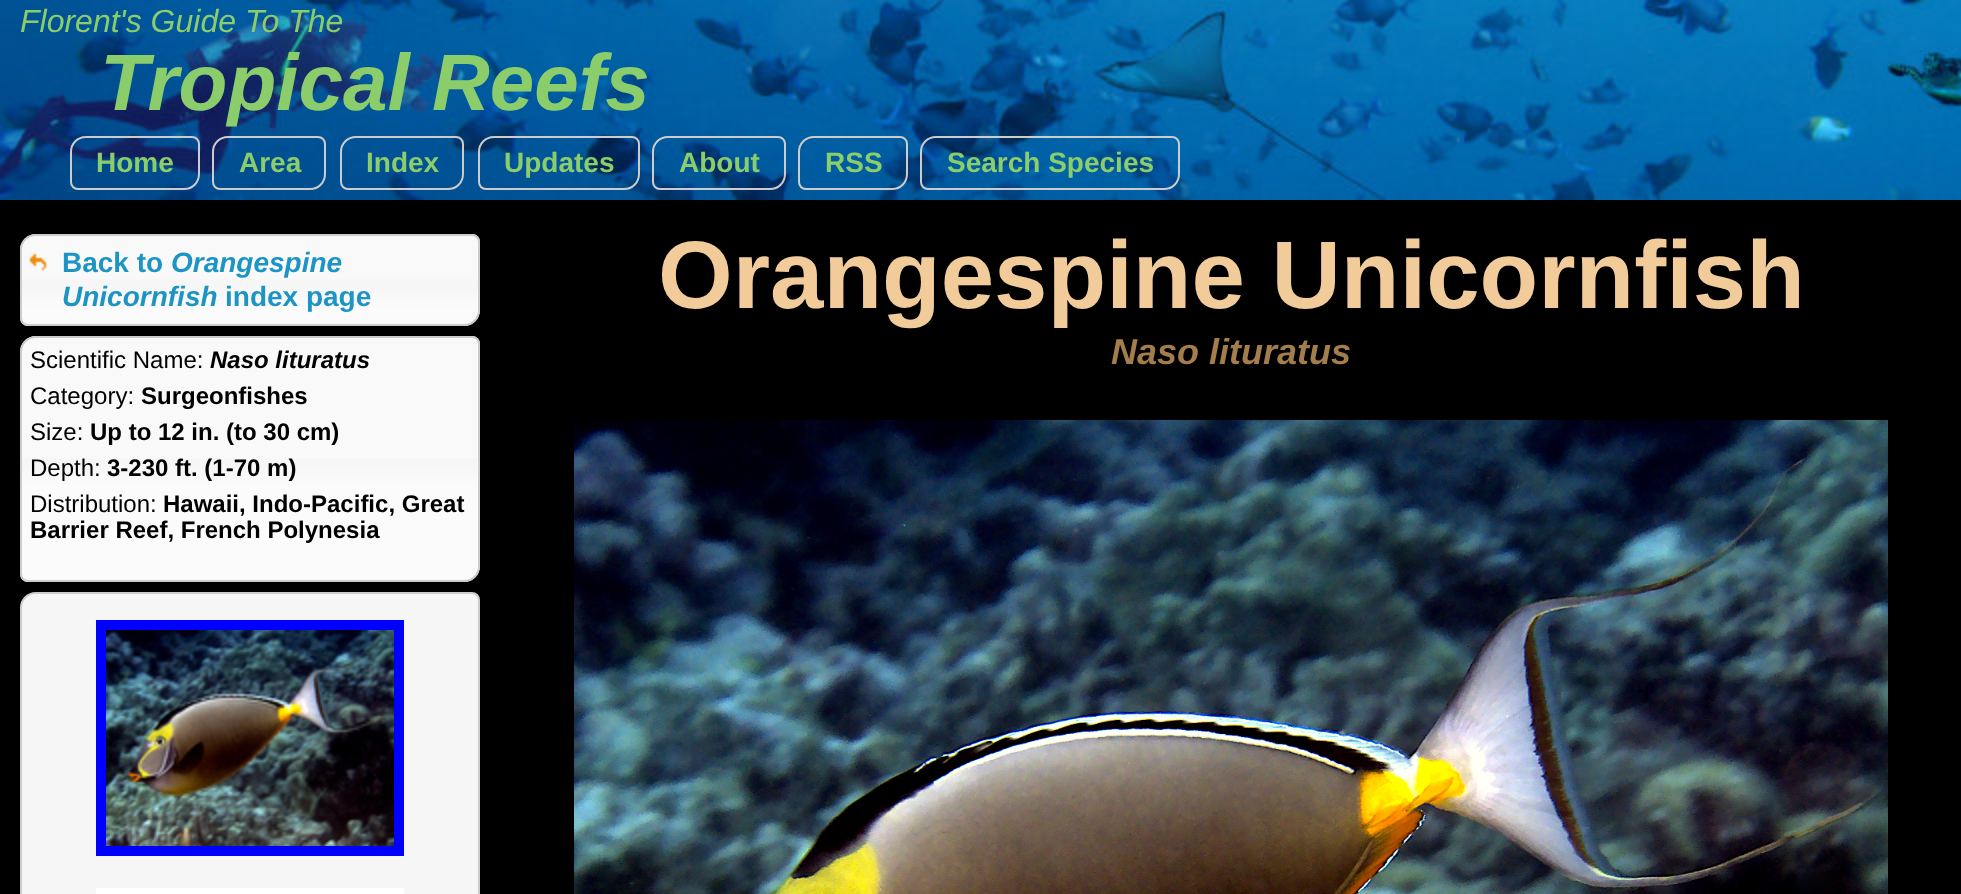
<svg xmlns="http://www.w3.org/2000/svg" width="1961" height="894">
<rect width="100%" height="100%" fill="#000"/>
<image x="0" y="0" width="1961" height="200" href="media/1.png"/>
<text x="20" y="32" style="font-family:Liberation Sans;font-size:32px;font-style:italic;fill:#8bcd6b">Florent's Guide To The</text>
<text x="100" y="110" style="font-family:Liberation Sans;font-size:80px;font-weight:bold;font-style:italic;fill:#8bcd6b">Tropical Reefs</text>
<path d="M86 137h106c4 0 7 3 7 7v30c0 8.5-6.5 15-15 15h-106c-4 0-7-3-7-7v-30c0-8.5 6.5-15 15-15z" fill="none" stroke="#ccc" stroke-width="2"/>
<text x="96" y="172" style="font-family:Liberation Sans;font-size:28px;font-weight:bold;fill:#8bcd6b">Home</text>
<path d="M228 137h90c4 0 7 3 7 7v30c0 8.5-6.5 15-15 15h-90c-4 0-7-3-7-7v-30c0-8.5 6.5-15 15-15z" fill="none" stroke="#ccc" stroke-width="2"/>
<text x="239" y="172" style="font-family:Liberation Sans;font-size:28px;font-weight:bold;fill:#8bcd6b">Area</text>
<path d="M356 137h100c4 0 7 3 7 7v30c0 8.5-6.5 15-15 15h-100c-4 0-7-3-7-7v-30c0-8.5 6.5-15 15-15z" fill="none" stroke="#ccc" stroke-width="2"/>
<text x="366" y="172" style="font-family:Liberation Sans;font-size:28px;font-weight:bold;fill:#8bcd6b">Index</text>
<path d="M494 137h138c4 0 7 3 7 7v30c0 8.5-6.5 15-15 15h-138c-4 0-7-3-7-7v-30c0-8.5 6.5-15 15-15z" fill="none" stroke="#ccc" stroke-width="2"/>
<text x="504" y="172" style="font-family:Liberation Sans;font-size:28px;font-weight:bold;fill:#8bcd6b">Updates</text>
<path d="M668 137h110c4 0 7 3 7 7v30c0 8.5-6.5 15-15 15h-110c-4 0-7-3-7-7v-30c0-8.5 6.5-15 15-15z" fill="none" stroke="#ccc" stroke-width="2"/>
<text x="679" y="172" style="font-family:Liberation Sans;font-size:28px;font-weight:bold;fill:#8bcd6b">About</text>
<path d="M814 137h86c4 0 7 3 7 7v30c0 8.5-6.5 15-15 15h-86c-4 0-7-3-7-7v-30c0-8.5 6.5-15 15-15z" fill="none" stroke="#ccc" stroke-width="2"/>
<text x="825" y="172" style="font-family:Liberation Sans;font-size:28px;font-weight:bold;fill:#8bcd6b">RSS</text>
<path d="M936 137h236c4 0 7 3 7 7v30c0 8.5-6.5 15-15 15h-236c-4 0-7-3-7-7v-30c0-8.5 6.5-15 15-15z" fill="none" stroke="#ccc" stroke-width="2"/>
<text x="947" y="172" style="font-family:Liberation Sans;font-size:28px;font-weight:bold;fill:#8bcd6b">Search Species</text>
<image x="20" y="234" width="460" height="92" href="media/2.png"/>
<path d="M36 235h436c4 0 7 3 7 7v68c0 8.5-6.5 15-15 15h-436c-4 0-7-3-7-7v-68c0-8.5 6.5-15 15-15z" fill="none" stroke="#ccc" stroke-width="2"/>
<image x="29" y="253" width="18" height="18" href="media/3.png"/>
<text x="62" y="272" style="font-family:Liberation Sans;font-size:28px;font-weight:bold;fill:#1c94c4">Back to</text>
<text x="171" y="272" style="font-family:Liberation Sans;font-size:28px;font-weight:bold;font-style:italic;fill:#1c94c4">Orangespine</text>
<text x="62" y="306" style="font-family:Liberation Sans;font-size:28px;font-weight:bold;font-style:italic;fill:#1c94c4">Unicornfish</text>
<text x="225" y="306" style="font-family:Liberation Sans;font-size:28px;font-weight:bold;fill:#1c94c4">index page</text>
<image x="20" y="336" width="460" height="246" href="media/4.png"/>
<path d="M36 337h436c4 0 7 3 7 7v222c0 8.5-6.5 15-15 15h-436c-4 0-7-3-7-7v-222c0-8.5 6.5-15 15-15z" fill="none" stroke="#ccc" stroke-width="2"/>
<text x="30" y="368" style="font-family:Liberation Sans;font-size:24px;fill:#000">Scientific Name:</text>
<text x="210" y="368" style="font-family:Liberation Sans;font-size:24px;font-weight:bold;font-style:italic;fill:#000">Naso lituratus</text>
<text x="30" y="404" style="font-family:Liberation Sans;font-size:24px;fill:#000">Category:</text>
<text x="141" y="404" style="font-family:Liberation Sans;font-size:24px;font-weight:bold;fill:#000">Surgeonfishes</text>
<text x="30" y="440" style="font-family:Liberation Sans;font-size:24px;fill:#000">Size:</text>
<text x="90" y="440" style="font-family:Liberation Sans;font-size:24px;font-weight:bold;fill:#000">Up to 12 in. (to 30 cm)</text>
<text x="30" y="476" style="font-family:Liberation Sans;font-size:24px;fill:#000">Depth:</text>
<text x="107" y="476" style="font-family:Liberation Sans;font-size:24px;font-weight:bold;fill:#000">3-230 ft. (1-70 m)</text>
<text x="30" y="512" style="font-family:Liberation Sans;font-size:24px;fill:#000">Distribution:</text>
<text x="163" y="512" style="font-family:Liberation Sans;font-size:24px;font-weight:bold;fill:#000">Hawaii, Indo-Pacific, Great</text>
<text x="30" y="538" style="font-family:Liberation Sans;font-size:24px;font-weight:bold;fill:#000">Barrier Reef, French Polynesia</text>
<path d="M36 593h436c4 0 7 3 7 7v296c0 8.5-6.5 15-15 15h-436c-4 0-7-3-7-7v-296c0-8.5 6.5-15 15-15z" fill="#f6f6f6" stroke="#ccc" stroke-width="2"/>
<rect x="101" y="625" width="298" height="226" fill="none" stroke="#00f" stroke-width="10"/>
<image x="106" y="630" width="288" height="216" href="media/5.png"/>
<rect x="101" y="893" width="298" height="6" fill="none" stroke="#fff" stroke-width="10"/>
<text x="658" y="308" style="font-family:Liberation Sans;font-size:96px;font-weight:bold;fill:#f1cb99">Orangespine Unicornfish</text>
<text x="1111" y="364" style="font-family:Liberation Sans;font-size:36px;font-weight:bold;font-style:italic;fill:#a37d4c">Naso lituratus</text>
<image x="574" y="420" width="1314" height="474" href="media/6.png"/>
</svg>
